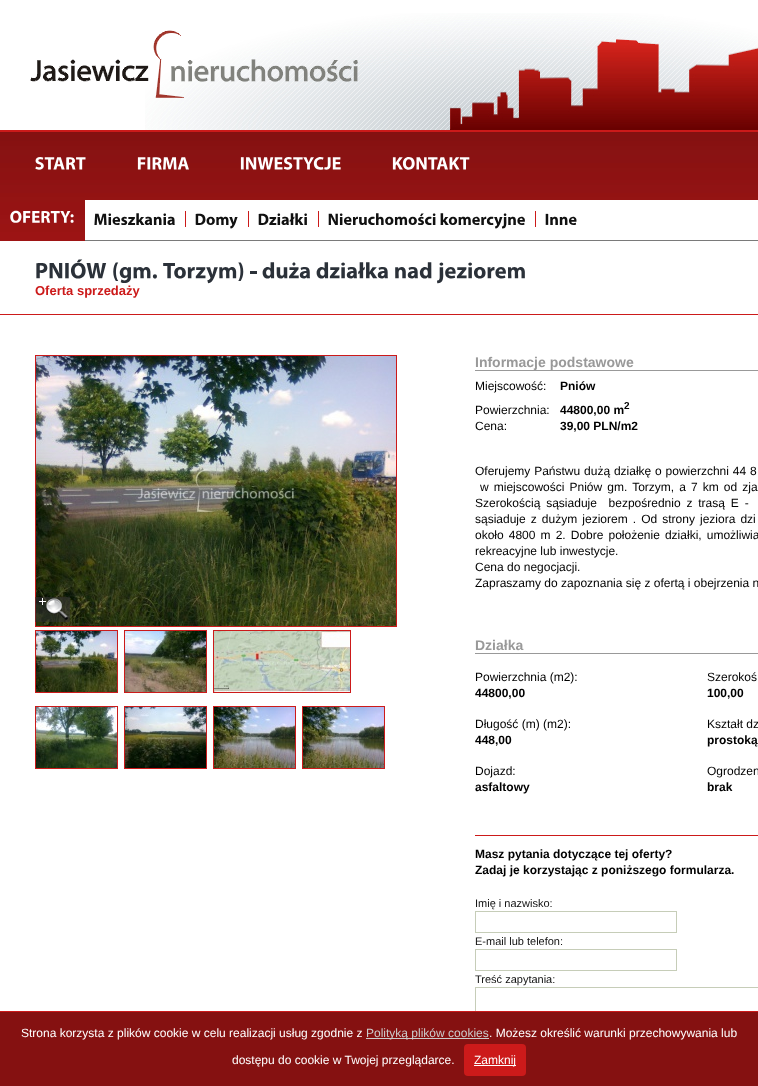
<svg xmlns="http://www.w3.org/2000/svg" width="758" height="1086">
<rect width="100%" height="100%" fill="#fff"/>
<image x="0" y="0" width="758" height="241" href="media/1.png"/>
<image x="145" y="13" width="613" height="117" href="media/2.png"/>
<image x="30" y="30" width="328" height="68" href="media/3.png"/>
<image x="35" y="157" width="51" height="13" href="media/4.png"/>
<image x="137" y="157" width="52" height="13" href="media/5.png"/>
<image x="240" y="157" width="101" height="13" href="media/6.png"/>
<image x="392" y="157" width="78" height="13" href="media/7.png"/>
<image x="10" y="210" width="64" height="13" href="media/8.png"/>
<rect x="85" y="200" width="673" height="40" fill="#fff"/>
<rect x="85" y="240" width="673" height="1" fill="#7a7a7a"/>
<rect x="185" y="211" width="1" height="16" fill="#cc1a1a"/>
<image x="94" y="213" width="81" height="12" href="media/9.png"/>
<rect x="248" y="211" width="1" height="16" fill="#cc1a1a"/>
<image x="195" y="213" width="43" height="16" href="media/10.png"/>
<rect x="318" y="211" width="1" height="16" fill="#cc1a1a"/>
<image x="258" y="213" width="49" height="12" href="media/11.png"/>
<rect x="535" y="211" width="1" height="16" fill="#cc1a1a"/>
<image x="328" y="213" width="108" height="12" href="media/12.png"/>
<image x="440" y="213" width="85" height="16" href="media/13.png"/>
<image x="545" y="213" width="32" height="12" href="media/14.png"/>
<image x="36" y="259" width="71" height="20" href="media/15.png"/>
<image x="113" y="262" width="44" height="21" href="media/16.png"/>
<image x="163" y="262" width="81" height="22" href="media/17.png"/>
<rect x="250" y="271" width="7" height="3" fill="#2b3139"/>
<image x="262" y="262" width="48" height="17" href="media/18.png"/>
<image x="316" y="262" width="72" height="17" href="media/19.png"/>
<image x="395" y="262" width="37" height="17" href="media/20.png"/>
<image x="437" y="262" width="88" height="22" href="media/21.png"/>
<text x="35" y="295" style="font-family:Liberation Sans;font-size:13px;font-weight:bold;fill:#cc1a1a">Oferta sprzedaży</text>
<rect y="314" width="758" height="1" fill="#cc1a1a"/>
<rect x="35.5" y="355.5" width="361" height="271" fill="none" stroke="#cc1a1a"/>
<image x="36" y="356" width="360" height="270" href="media/22.png"/>
<image x="35" y="597" width="35" height="25" href="media/23.png"/>
<rect x="35.5" y="630.5" width="82" height="62" fill="none" stroke="#cc1a1a"/>
<rect x="124.5" y="630.5" width="82" height="62" fill="none" stroke="#cc1a1a"/>
<rect x="213.5" y="630.5" width="137" height="62" fill="none" stroke="#cc1a1a"/>
<image x="36" y="631" width="81" height="61" href="media/24.png"/>
<image x="125" y="631" width="81" height="61" href="media/25.png"/>
<image x="214" y="631" width="136" height="61" href="media/26.png"/>
<rect x="35.5" y="706.5" width="82" height="62" fill="none" stroke="#cc1a1a"/>
<rect x="124.5" y="706.5" width="82" height="62" fill="none" stroke="#cc1a1a"/>
<rect x="213.5" y="706.5" width="82" height="62" fill="none" stroke="#cc1a1a"/>
<rect x="302.5" y="706.5" width="82" height="62" fill="none" stroke="#cc1a1a"/>
<image x="36" y="707" width="81" height="61" href="media/27.png"/>
<image x="125" y="707" width="81" height="61" href="media/28.png"/>
<image x="214" y="707" width="81" height="61" href="media/29.png"/>
<image x="303" y="707" width="81" height="61" href="media/29.png"/>
<rect x="475" y="370" width="283" height="1" fill="#999"/>
<text x="475" y="367" style="font-family:Liberation Sans;font-size:14px;font-weight:bold;fill:#999">Informacje podstawowe</text>
<text x="475" y="390" style="font-family:Liberation Sans;font-size:12px;fill:#000">Miejscowość:</text>
<text x="560" y="390" style="font-family:Liberation Sans;font-size:12px;font-weight:bold;fill:#000">Pniów</text>
<text x="475" y="414" style="font-family:Liberation Sans;font-size:12px;fill:#000">Powierzchnia:</text>
<text x="560" y="414" style="font-family:Liberation Sans;font-size:12px;font-weight:bold;fill:#000">44800,00 m</text>
<text x="624" y="409" style="font-family:Liberation Sans;font-size:10px;font-weight:bold;fill:#000">2</text>
<text x="475" y="430" style="font-family:Liberation Sans;font-size:12px;fill:#000">Cena:</text>
<text x="560" y="430" style="font-family:Liberation Sans;font-size:12px;font-weight:bold;fill:#000">39,00 PLN/m2</text>
<text x="475" y="475" word-spacing="0.5" style="font-family:Liberation Sans;font-size:12px;fill:#000">Oferujemy Państwu dużą działkę o powierzchni 44 8</text>
<text x="480" y="491" word-spacing="1.75" style="font-family:Liberation Sans;font-size:12px;fill:#000">w miejscowości Pniów gm. Torzym, a 7 km od zja</text>
<text x="475" y="507" word-spacing="2.5" style="font-family:Liberation Sans;font-size:12px;fill:#000" xml:space="preserve">Szerokością sąsiaduje  bezpośrednio z trasą E -</text>
<text x="475" y="523" word-spacing="1.75" style="font-family:Liberation Sans;font-size:12px;fill:#000">sąsiaduje z dużym jeziorem . Od strony jeziora dzi</text>
<text x="475" y="539" word-spacing="1.75" style="font-family:Liberation Sans;font-size:12px;fill:#000">około 4800 m 2. Dobre położenie działki, umożliwia</text>
<text x="475" y="555" style="font-family:Liberation Sans;font-size:12px;fill:#000">rekreacyjne lub inwestycje.</text>
<text x="475" y="571" style="font-family:Liberation Sans;font-size:12px;fill:#000">Cena do negocjacji.</text>
<text x="475" y="587" style="font-family:Liberation Sans;font-size:12px;fill:#000">Zapraszamy do zapoznania się z ofertą i obejrzenia n</text>
<rect x="475" y="653" width="283" height="1" fill="#999"/>
<text x="475" y="650" style="font-family:Liberation Sans;font-size:14px;font-weight:bold;fill:#999">Działka</text>
<text x="475" y="681" style="font-family:Liberation Sans;font-size:12px;fill:#000">Powierzchnia (m2):</text>
<text x="475" y="697" style="font-family:Liberation Sans;font-size:12px;font-weight:bold;fill:#000">44800,00</text>
<text x="707" y="681" style="font-family:Liberation Sans;font-size:12px;fill:#000">Szerokoś</text>
<text x="707" y="697" style="font-family:Liberation Sans;font-size:12px;font-weight:bold;fill:#000">100,00</text>
<text x="475" y="728" style="font-family:Liberation Sans;font-size:12px;fill:#000">Długość (m) (m2):</text>
<text x="475" y="744" style="font-family:Liberation Sans;font-size:12px;font-weight:bold;fill:#000">448,00</text>
<text x="707" y="728" style="font-family:Liberation Sans;font-size:12px;fill:#000">Kształt dz</text>
<text x="707" y="744" style="font-family:Liberation Sans;font-size:12px;font-weight:bold;fill:#000">prostoką</text>
<text x="475" y="775" style="font-family:Liberation Sans;font-size:12px;fill:#000">Dojazd:</text>
<text x="475" y="791" style="font-family:Liberation Sans;font-size:12px;font-weight:bold;fill:#000">asfaltowy</text>
<text x="707" y="775" style="font-family:Liberation Sans;font-size:12px;fill:#000">Ogrodzen</text>
<text x="707" y="791" style="font-family:Liberation Sans;font-size:12px;font-weight:bold;fill:#000">brak</text>
<rect x="475" y="835" width="283" height="1" fill="#cc1a1a"/>
<text x="475" y="858" style="font-family:Liberation Sans;font-size:12px;font-weight:bold;fill:#000">Masz pytania dotyczące tej oferty?</text>
<text x="475" y="874" style="font-family:Liberation Sans;font-size:12px;font-weight:bold;fill:#000">Zadaj je korzystając z poniższego formularza.</text>
<text x="475" y="907" style="font-family:Liberation Sans;font-size:11px;fill:#111">Imię i nazwisko:</text>
<rect x="475.5" y="911.5" width="201" height="21" fill="none" stroke="#c6cdb8"/>
<text x="475" y="945" style="font-family:Liberation Sans;font-size:11px;fill:#111">E-mail lub telefon:</text>
<rect x="475.5" y="949.5" width="201" height="21" fill="none" stroke="#c6cdb8"/>
<text x="475" y="983" style="font-family:Liberation Sans;font-size:11px;fill:#111">Treść zapytania:</text>
<rect x="475.5" y="987.5" width="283" height="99" fill="none" stroke="#c6cdb8"/>
<rect y="1012" width="758" height="74" fill="#851111"/>
<rect y="1011" width="758" height="1" fill="#cc1a1a"/>
<text x="21" y="1037" style="font-family:Liberation Sans;font-size:12px;fill:#fff">Strona korzysta z plików cookie w celu realizacji usług zgodnie z</text>
<rect x="366" y="1038" width="123" height="1" fill="#ccc"/>
<text x="366" y="1037" style="font-family:Liberation Sans;font-size:12px;fill:#ccc">Polityką plików cookies</text>
<text x="489" y="1037" style="font-family:Liberation Sans;font-size:12px;fill:#fff">. Możesz określić warunki przechowywania lub</text>
<text x="232" y="1064" style="font-family:Liberation Sans;font-size:12px;fill:#fff">dostępu do cookie w Twojej przeglądarce.</text>
<rect x="464" y="1044" width="62" height="32" rx="4" fill="#cc1a1a"/>
<rect x="474" y="1065" width="42" height="1" fill="#fff"/>
<text x="474" y="1064" style="font-family:Liberation Sans;font-size:12px;fill:#fff">Zamknij</text>
</svg>
